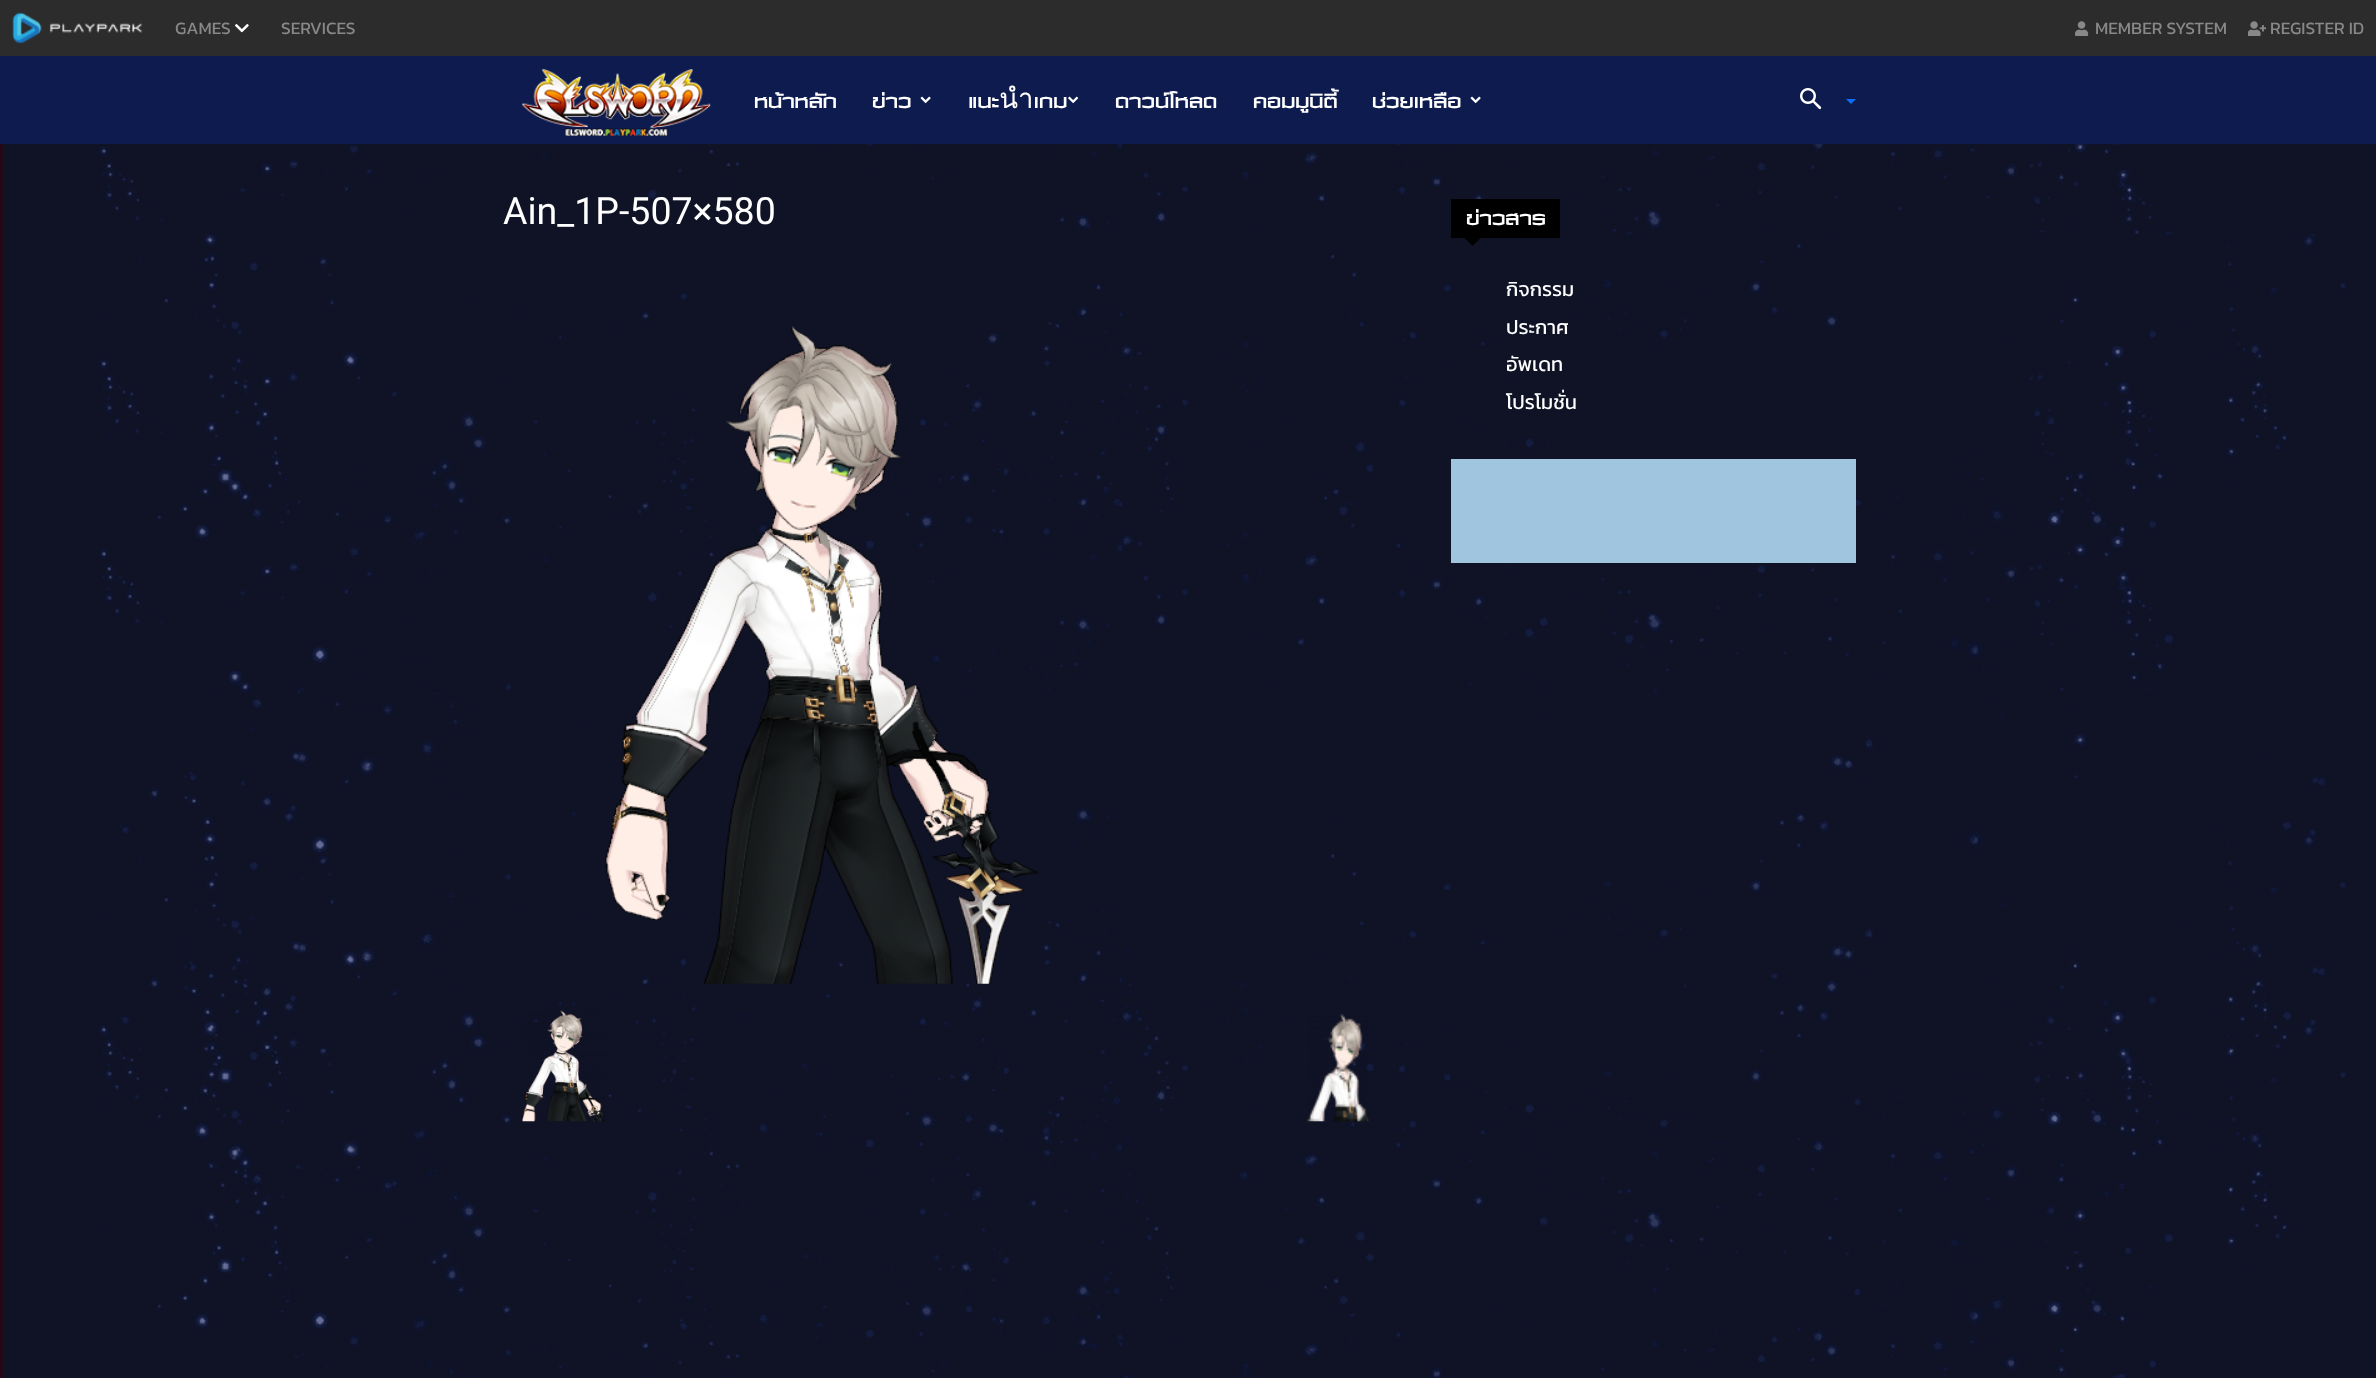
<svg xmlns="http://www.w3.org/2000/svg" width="2376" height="1378">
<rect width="100%" height="100%" fill="#0f1325"/>
<rect width="2376" height="56" fill="#2c2c2c"/>
<image x="12" y="12" width="131" height="32" href="media/1.png"/>
<text x="175" y="34" style="font-family:Kanit;font-size:17.5px;fill:#888">GAMES</text>
<image x="235" y="24" width="14" height="9" href="media/2.png"/>
<text x="281" y="34" style="font-family:Kanit;font-size:17.5px;fill:#888">SERVICES</text>
<image x="2075" y="21" width="14" height="15" href="media/3.png"/>
<text x="2095" y="34" style="font-family:Kanit;font-size:17.5px;fill:#888">MEMBER SYSTEM</text>
<image x="2248" y="21" width="18" height="15" href="media/4.png"/>
<text x="2270" y="34" style="font-family:Kanit;font-size:17.5px;fill:#888">REGISTER ID</text>
<rect y="56" width="2376" height="88" fill="#0d1b4e"/>
<image x="522" y="69" width="189" height="67" href="media/5.png"/>
<text x="754" y="108" style="font-family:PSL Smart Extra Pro;font-size:27.5px;fill:#fff">หน้าหลัก</text>
<text x="872" y="108" style="font-family:PSL Smart Extra Pro;font-size:27.5px;fill:#fff">ข่าว</text>
<image x="920" y="96" width="11" height="8" href="media/6.png"/>
<text x="968" y="108" style="font-family:PSL Smart Extra Pro;font-size:27.5px;fill:#fff">แนะนำเกม</text>
<image x="1068" y="96" width="11" height="8" href="media/7.png"/>
<text x="1115" y="108" style="font-family:PSL Smart Extra Pro;font-size:27.5px;fill:#fff">ดาวน์โหลด</text>
<text x="1253" y="108" style="font-family:PSL Smart Extra Pro;font-size:27.5px;fill:#fff">คอมมูนิตี้</text>
<text x="1372" y="108" style="font-family:PSL Smart Extra Pro;font-size:27.5px;fill:#fff">ช่วยเหลือ</text>
<image x="1470" y="96" width="11" height="8" href="media/6.png"/>
<image x="1800" y="88" width="22" height="22" href="media/8.png"/>
<path d="M1846 99h10l-5 5z" fill="#0d6efd"/>
<image x="0" y="144" width="2347" height="1234" href="media/9.png"/>
<text x="503" y="224" style="font-family:Roboto;font-size:37.5px;fill:#fff">Ain_1P-507×580</text>
<image x="605" y="326" width="434" height="658" href="media/10.png"/>
<image x="522" y="1010" width="85" height="112" href="media/11.png"/>
<image x="1307" y="1013" width="63" height="109" href="media/12.png"/>
<rect x="1451" y="199" width="109" height="39" fill="#000"/>
<text x="1466" y="225" style="font-family:PSL Smart Extra Pro;font-size:27.5px;fill:#fff">ข่าวสาร</text>
<path d="M1464 237.5h17l-8.5 8.5z" fill="#000"/>
<text x="1506" y="296" style="font-family:Kanit;font-size:20px;fill:#fff">กิจกรรม</text>
<text x="1506" y="334" style="font-family:Kanit;font-size:20px;fill:#fff">ประกาศ</text>
<text x="1506" y="371" style="font-family:Kanit;font-size:20px;fill:#fff">อัพเดท</text>
<text x="1506" y="409" style="font-family:Kanit;font-size:20px;fill:#fff">โปรโมชั่น</text>
<rect x="1451" y="459" width="405" height="104" fill="#a0c6df"/>
</svg>
